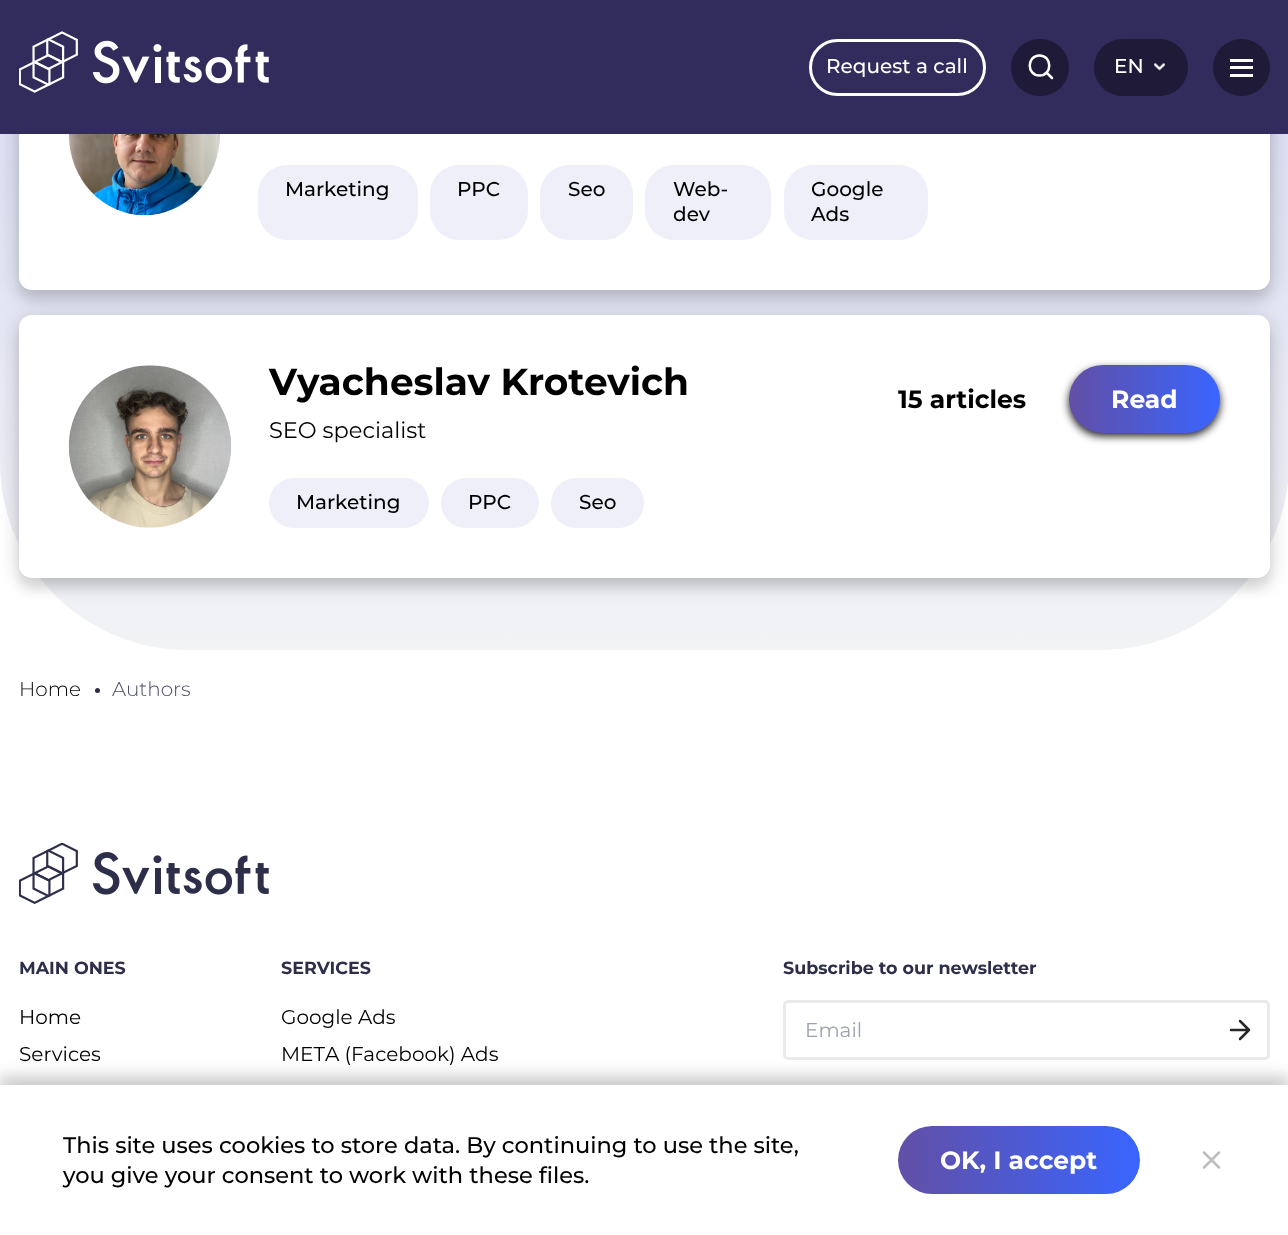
<svg xmlns="http://www.w3.org/2000/svg" width="1288" height="1235">
<defs>
<linearGradient id="g1" gradientUnits="userSpaceOnUse" x1="644" y1="-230" x2="644" y2="650"><stop offset="0" stop-color="#ced0f0"/><stop offset="1" stop-color="#f2f3f5"/></linearGradient>
<linearGradient id="g2" gradientUnits="userSpaceOnUse" x1="1069" y1="399" x2="1220" y2="399"><stop offset="0.05" stop-color="#6050aa"/><stop offset="1" stop-color="#3965ff"/></linearGradient>
<linearGradient id="g3" gradientUnits="userSpaceOnUse" x1="898" y1="1160" x2="1140" y2="1160"><stop offset="0.05" stop-color="#6050aa"/><stop offset="1" stop-color="#3965ff"/></linearGradient>
</defs>
<rect width="100%" height="100%" fill="#fff"/>
<path d="M0-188h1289v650c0 104-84 188-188 188h-913c-104 0-188-84-188-188z" fill="url(#g1)"/>
<rect x="19" y="15" width="1251" height="288" rx="13" fill="#0000000d" filter="blur(5px)"/>
<rect x="19" y="8" width="1251" height="287" rx="13" fill="#00000033" filter="blur(9.5px)"/>
<rect x="19" y="3" width="1251" height="287" rx="13" fill="#fff"/>
<rect width="1288" height="134" fill="#322c5c"/>
<image x="19" y="31" width="250" height="62" href="media/1.png"/>
<rect x="810.5" y="40.5" width="174" height="54" rx="27" fill="none" stroke="#fff" stroke-width="3"/>
<text x="826" y="73" style="font-family:Montserrat;font-size:20px;font-weight:500;fill:#fff">Request a call</text>
<rect x="1011" y="39" width="58" height="57" rx="28.5" fill="#1e1a37"/>
<path d="M1039.5 75.5c13 0 13-20 0-20c-13 0-13 20 0 20zm12.5 2.5l-5.5-5.5" fill="none" stroke="#fff" stroke-width="2.5" stroke-linecap="round" stroke-linejoin="round"/>
<rect x="1094" y="39" width="94" height="57" rx="28.5" fill="#1e1a37"/>
<text x="1114" y="73" style="font-family:Montserrat;font-size:20px;font-weight:500;fill:#fff">EN</text>
<image x="1154" y="62" width="11" height="9" href="media/2.png"/>
<circle cx="1241.5" cy="67.5" r="28.5" fill="#1e1a37"/>
<rect x="1230" y="59" width="23" height="3" fill="#fff"/>
<rect x="1230" y="66" width="23" height="3" fill="#fff"/>
<rect x="1230" y="74" width="23" height="3" fill="#fff"/>
<image x="68" y="134" width="152" height="82" href="media/3.png"/>
<rect x="258" y="165" width="160" height="75" rx="29" fill="#eeeff9"/>
<text x="285" y="196" style="font-family:Montserrat;font-size:20px;font-weight:500;fill:#000">Marketing</text>
<rect x="430" y="165" width="98" height="75" rx="29" fill="#eeeff9"/>
<text x="457" y="196" style="font-family:Montserrat;font-size:20px;font-weight:500;fill:#000">PPC</text>
<rect x="540" y="165" width="93" height="75" rx="29" fill="#eeeff9"/>
<text x="568" y="196" style="font-family:Montserrat;font-size:20px;font-weight:500;fill:#000">Seo</text>
<rect x="645" y="165" width="126" height="75" rx="29" fill="#eeeff9"/>
<text x="673" y="196" style="font-family:Montserrat;font-size:20px;font-weight:500;fill:#000">Web-</text>
<text x="673" y="221" style="font-family:Montserrat;font-size:20px;font-weight:500;fill:#000">dev</text>
<rect x="784" y="165" width="144" height="75" rx="29" fill="#eeeff9"/>
<text x="811" y="196" style="font-family:Montserrat;font-size:20px;font-weight:500;fill:#000">Google</text>
<text x="811" y="221" style="font-family:Montserrat;font-size:20px;font-weight:500;fill:#000">Ads</text>
<rect x="19" y="328" width="1251" height="262" rx="13" fill="#0000000d" filter="blur(5px)"/>
<rect x="19" y="320" width="1251" height="263" rx="13" fill="#00000033" filter="blur(9.5px)"/>
<rect x="19" y="315" width="1251" height="263" rx="13" fill="#fff"/>
<image x="68" y="365" width="164" height="163" href="media/4.png"/>
<text x="269" y="395" style="font-family:Montserrat;font-size:37.5px;font-weight:bold;fill:#000">Vyacheslav Krotevich</text>
<text x="269" y="438" style="font-family:Montserrat;font-size:22.5px;fill:#000">SEO specialist</text>
<rect x="269" y="478" width="160" height="50" rx="25" fill="#eeeff9"/>
<text x="296" y="509" style="font-family:Montserrat;font-size:20px;font-weight:500;fill:#000">Marketing</text>
<rect x="441" y="478" width="98" height="50" rx="25" fill="#eeeff9"/>
<text x="468" y="509" style="font-family:Montserrat;font-size:20px;font-weight:500;fill:#000">PPC</text>
<rect x="551" y="478" width="93" height="50" rx="25" fill="#eeeff9"/>
<text x="579" y="509" style="font-family:Montserrat;font-size:20px;font-weight:500;fill:#000">Seo</text>
<text x="898" y="408" style="font-family:Montserrat;font-size:25px;font-weight:bold;fill:#000">15 articles</text>
<rect x="1069" y="369" width="151" height="67" rx="33.5" fill="#000000e6" filter="blur(4.5px)"/>
<rect x="1069" y="365" width="151" height="68" rx="34" fill="url(#g2)"/>
<text x="1111" y="408" style="font-family:Montserrat;font-size:25px;font-weight:bold;fill:#fff">Read</text>
<text x="19" y="696" style="font-family:Montserrat;font-size:20px;font-weight:300;fill:#000">Home</text>
<circle cx="97.5" cy="690.5" r="2.5" fill="#2d2e4a"/>
<text x="112" y="696" style="font-family:Montserrat;font-size:20px;font-weight:300;fill:#4d4d65">Authors</text>
<image x="19" y="843" width="250" height="61" href="media/5.png"/>
<text x="19" y="974" style="font-family:Montserrat;font-size:17.5px;font-weight:bold;fill:#2d2e4a">MAIN ONES</text>
<text x="19" y="1024" style="font-family:Montserrat;font-size:20px;fill:#000">Home</text>
<text x="19" y="1061" style="font-family:Montserrat;font-size:20px;fill:#000">Services</text>
<text x="281" y="974" style="font-family:Montserrat;font-size:17.5px;font-weight:bold;fill:#2d2e4a">SERVICES</text>
<text x="281" y="1024" style="font-family:Montserrat;font-size:20px;fill:#000">Google Ads</text>
<text x="281" y="1061" style="font-family:Montserrat;font-size:20px;fill:#000">META (Facebook) Ads</text>
<text x="783" y="974" style="font-family:Montserrat;font-size:17.5px;font-weight:bold;fill:#2d2e4a">Subscribe to our newsletter</text>
<rect x="784.5" y="1001.5" width="484" height="57" rx="3.5" fill="none" stroke="#eaeaed" stroke-width="3"/>
<text x="805" y="1037" style="font-family:Montserrat;font-size:20px;fill:#9ca3af">Email</text>
<path d="M1231 1030h18m-9-9l9 9l-9 9" fill="none" stroke="#262626" stroke-width="2.5" stroke-linecap="round" stroke-linejoin="round"/>
<rect y="1073" width="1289" height="150" fill="#0000000d" filter="blur(5px)"/>
<rect y="1080" width="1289" height="150" fill="#00000033" filter="blur(9.5px)"/>
<rect y="1085" width="1288" height="150" fill="#fff"/>
<text x="63" y="1153" style="font-family:Montserrat;font-size:22.5px;font-weight:500;fill:#000">This site uses cookies to store data. By continuing to use the site,</text>
<text x="63" y="1183" style="font-family:Montserrat;font-size:22.5px;font-weight:500;fill:#000">you give your consent to work with these files.</text>
<rect x="898" y="1126" width="242" height="68" rx="34" fill="url(#g3)"/>
<text x="940" y="1169" style="font-family:Montserrat;font-size:25px;font-weight:bold;fill:#fff">OK, I accept</text>
<path d="M1219 1152.5l-15 15m0-15l15 15" fill="none" stroke="#bebebe" stroke-width="2.5" stroke-linecap="round" stroke-linejoin="round"/>
</svg>
